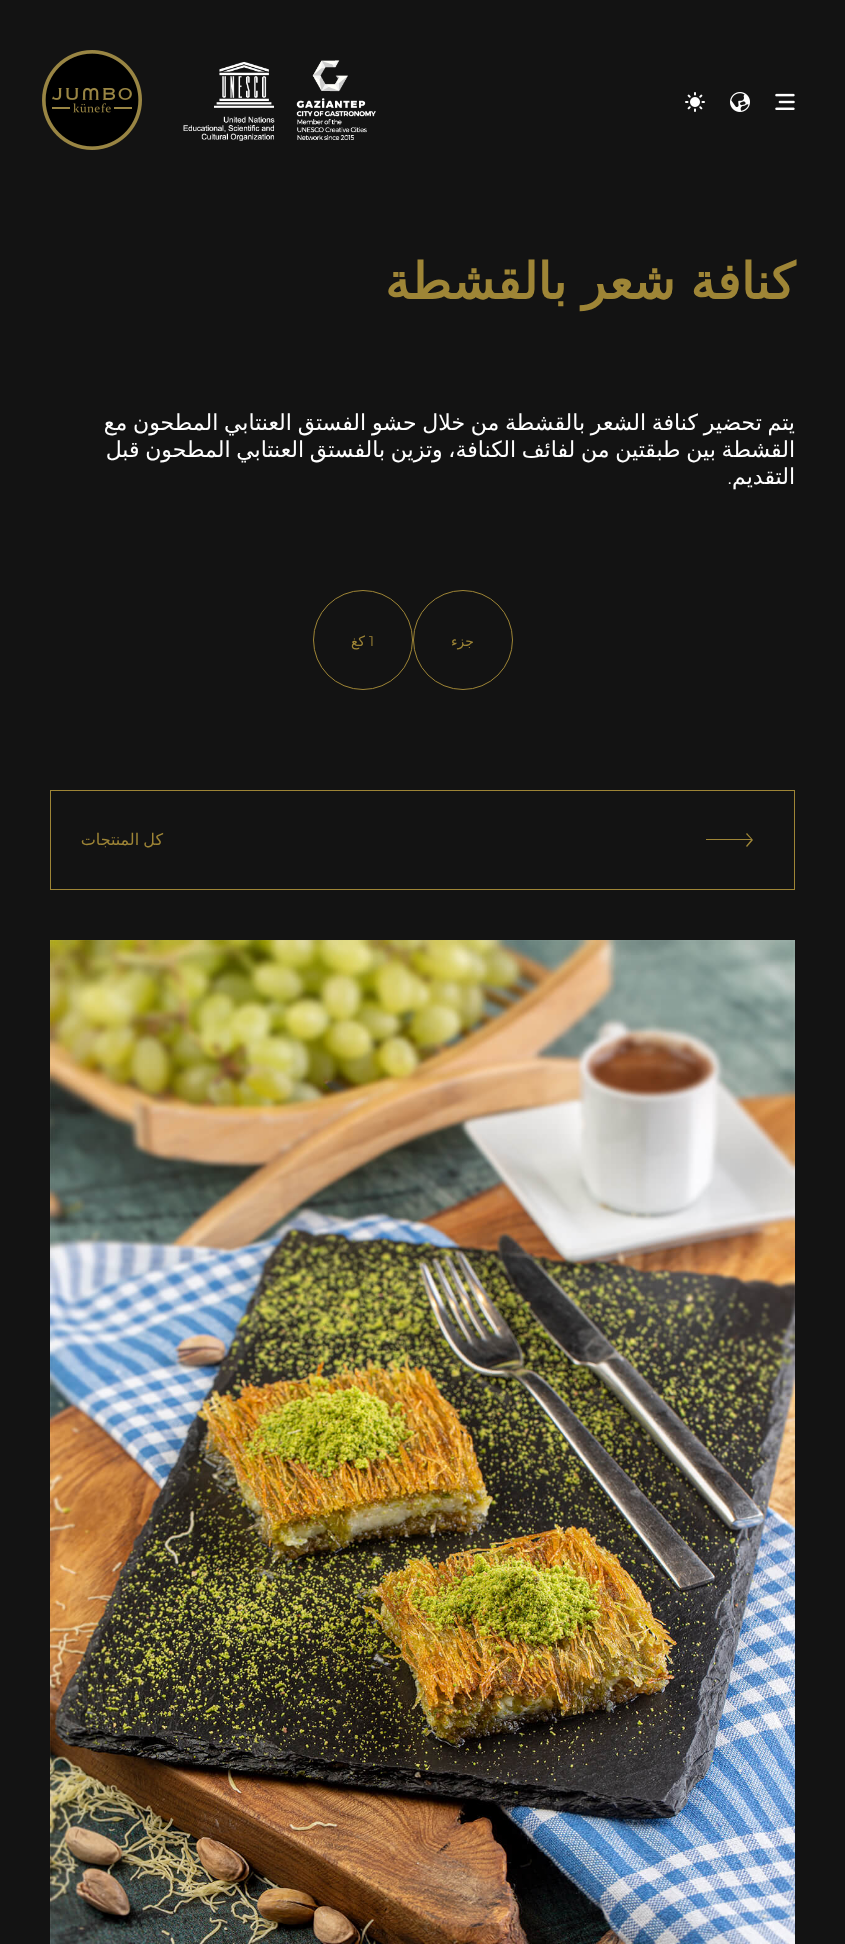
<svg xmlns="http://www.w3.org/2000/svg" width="845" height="1944">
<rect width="100%" height="100%" fill="#131313"/>
<image x="775" y="93" width="20" height="17" href="media/1.png"/>
<image x="730" y="92" width="20" height="20" href="media/2.png"/>
<image x="685" y="92" width="20" height="20" href="media/3.png"/>
<image x="183" y="60" width="193" height="81" href="media/4.png"/>
<image x="42" y="50" width="100" height="100" href="media/5.png"/>
<text x="795" y="299" word-spacing="-1" style="font-family:DejaVu Sans;font-size:50px;font-weight:bold;direction:rtl;fill:#9e8536">كنافة شعر بالقشطة</text>
<text x="795" y="430" word-spacing="-1.25" style="font-family:DejaVu Sans;font-size:22px;direction:rtl;fill:#fff">يتم تحضير كنافة الشعر بالقشطة من خلال حشو الفستق العنتابي المطحون مع</text>
<text x="795" y="457" word-spacing="-1.25" style="font-family:DejaVu Sans;font-size:22px;direction:rtl;fill:#fff">القشطة بين طبقتين من لفائف الكنافة، وتزين بالفستق العنتابي المطحون قبل</text>
<text x="795" y="484" style="font-family:DejaVu Sans;font-size:22px;direction:rtl;fill:#fff">التقديم</text>
<text x="732" y="484" style="font-family:Montserrat;font-size:22px;font-weight:300;direction:rtl;fill:#fff">.</text>
<circle cx="463" cy="640" r="49.5" fill="none" stroke="#9e8536"/>
<text x="474" y="646" style="font-family:DejaVu Sans;font-size:14px;direction:rtl;fill:#9e8536">جزء</text>
<circle cx="363" cy="640" r="49.5" fill="none" stroke="#9e8536"/>
<text x="369" y="646" style="font-family:Montserrat;font-size:14px;fill:#9e8536">1</text>
<text x="365" y="646" style="font-family:DejaVu Sans;font-size:14px;direction:rtl;fill:#9e8536">كغ</text>
<rect x="50.5" y="790.5" width="744" height="99" fill="none" stroke="#9e8536"/>
<path d="M753 840l-6-7l-1 1l5 5h-45v1h45l-5 6l1 1l6-7c1 0 1 0 0 0z" fill="#9e8536"/>
<text x="163" y="845" word-spacing="-1" style="font-family:DejaVu Sans;font-size:16px;direction:rtl;fill:#9e8536">كل المنتجات</text>
<image x="50" y="940" width="745" height="1004" href="media/6.png"/>
</svg>
